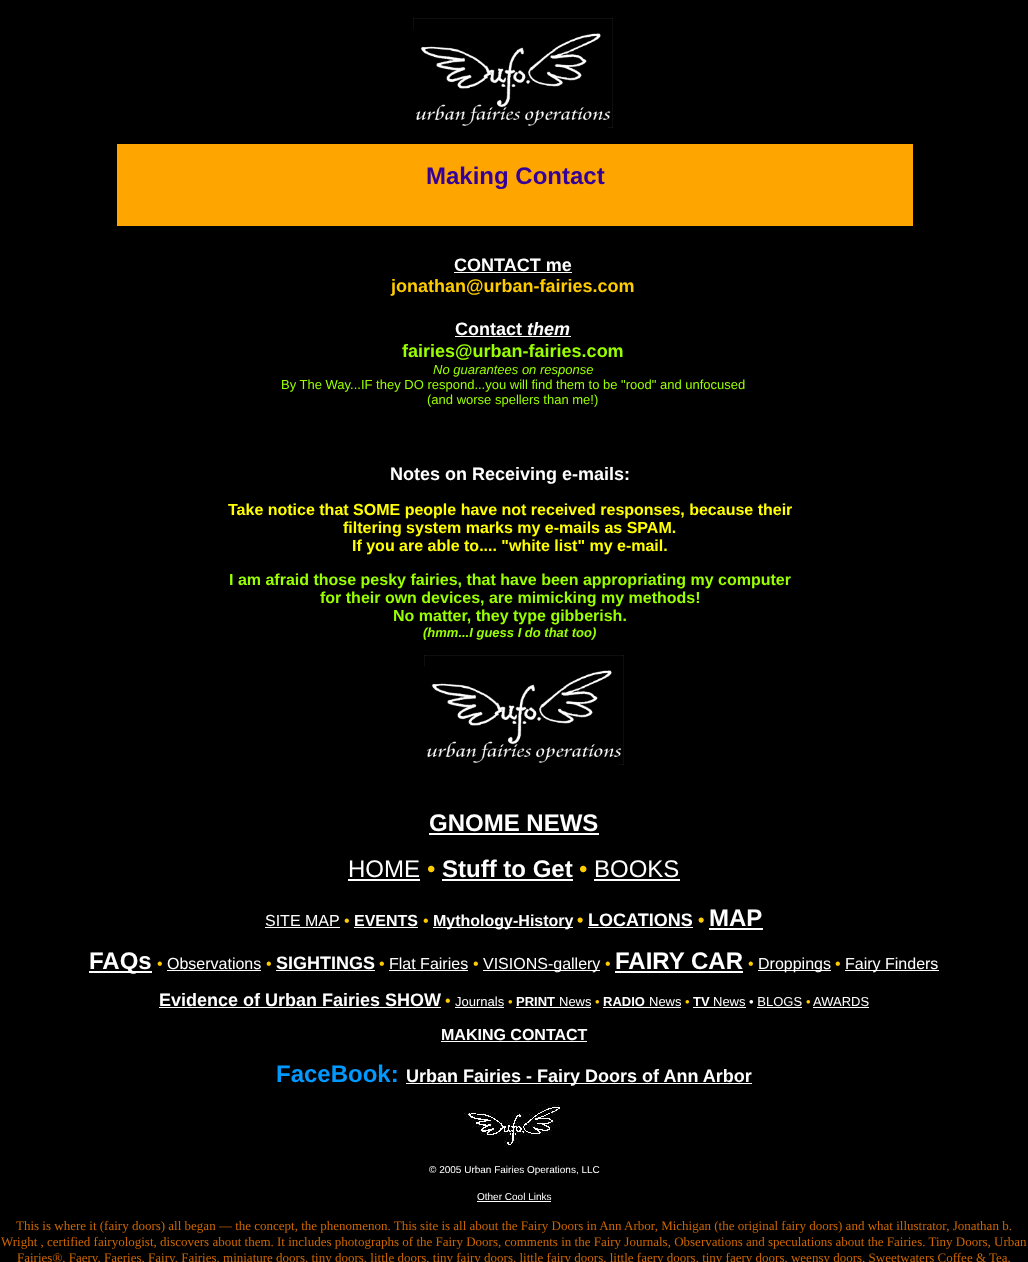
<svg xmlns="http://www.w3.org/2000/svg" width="1028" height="1262">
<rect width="100%" height="100%" fill="#000"/>
<image x="413" y="18" width="200" height="110" href="media/1.png"/>
<rect x="117" y="144" width="796" height="82" fill="#ffa500"/>
<text x="426" y="184" style="font-family:Liberation Sans;font-size:24px;font-weight:bold;fill:#309">Making Contact</text>
<text x="454" y="271" style="font-family:Liberation Sans;font-size:18px;font-weight:bold;fill:#fff">CONTACT me</text>
<rect x="454" y="272" width="118" height="1" fill="#fff"/>
<text x="391" y="292" style="font-family:Liberation Sans;font-size:18px;font-weight:bold;fill:#fc0">jonathan@urban-fairies.com</text>
<text x="455" y="335" style="font-family:Liberation Sans;font-size:18px;font-weight:bold;fill:#fff">Contact</text>
<rect x="455" y="336" width="116" height="1" fill="#fff"/>
<text x="527" y="335" style="font-family:Liberation Sans;font-size:18px;font-weight:bold;font-style:italic;fill:#fff">them</text>
<text x="402" y="357" style="font-family:Liberation Sans;font-size:18px;font-weight:bold;fill:#9f0">fairies@urban-fairies.com</text>
<text x="433" y="374" style="font-family:Liberation Sans;font-size:13px;font-style:italic;fill:#9f0">No guarantees on response</text>
<text x="281" y="389" style="font-family:Liberation Sans;font-size:13px;fill:#9f0">By The Way...IF they DO respond...you will find them to be "rood" and unfocused</text>
<text x="427" y="404" style="font-family:Liberation Sans;font-size:13px;fill:#9f0">(and worse spellers than me!)</text>
<text x="390" y="480" style="font-family:Liberation Sans;font-size:18px;font-weight:bold;fill:#fff">Notes on Receiving e-mails:</text>
<text x="228" y="515" style="font-family:Liberation Sans;font-size:16px;font-weight:bold;fill:#ff0">Take notice that SOME people have not received responses, because their</text>
<text x="343" y="533" style="font-family:Liberation Sans;font-size:16px;font-weight:bold;fill:#ff0">filtering system marks my e-mails as SPAM.</text>
<text x="352" y="551" style="font-family:Liberation Sans;font-size:16px;font-weight:bold;fill:#ff0">If you are able to.... "white list" my e-mail.</text>
<text x="229" y="585" style="font-family:Liberation Sans;font-size:16px;font-weight:bold;fill:#9f0">I am afraid those pesky fairies, that have been appropriating my computer</text>
<text x="320" y="603" style="font-family:Liberation Sans;font-size:16px;font-weight:bold;fill:#9f0">for their own devices, are mimicking my methods!</text>
<text x="393" y="621" style="font-family:Liberation Sans;font-size:16px;font-weight:bold;fill:#9f0">No matter, they type gibberish.</text>
<text x="423" y="637" style="font-family:Liberation Sans;font-size:13px;font-weight:bold;font-style:italic;fill:#9f0">(hmm...I guess I do that too)</text>
<image x="424" y="655" width="200" height="110" href="media/1.png"/>
<text x="429" y="831" style="font-family:Liberation Sans;font-size:24px;font-weight:bold;fill:#fff">GNOME NEWS</text>
<rect x="429" y="833" width="170" height="2" fill="#fff"/>
<text x="348" y="877" style="font-family:Liberation Sans;font-size:24px;fill:#fff">HOME</text>
<rect x="348" y="879" width="72" height="2" fill="#fff"/>
<text x="427" y="877" style="font-family:Liberation Sans;font-size:24px;fill:#fc0">•</text>
<text x="442" y="877" style="font-family:Liberation Sans;font-size:24px;font-weight:bold;fill:#fff">Stuff to Get</text>
<rect x="442" y="879" width="131" height="2" fill="#fff"/>
<text x="579" y="877" style="font-family:Liberation Sans;font-size:24px;fill:#fc0">•</text>
<text x="594" y="877" style="font-family:Liberation Sans;font-size:24px;fill:#fff">BOOKS</text>
<rect x="594" y="879" width="86" height="2" fill="#fff"/>
<text x="265" y="926" style="font-family:Liberation Sans;font-size:16px;fill:#fff">SITE MAP</text>
<rect x="265" y="927" width="75" height="1" fill="#fff"/>
<text x="344" y="926" style="font-family:Liberation Sans;font-size:16px;fill:#fc0">•</text>
<text x="354" y="926" style="font-family:Liberation Sans;font-size:16px;font-weight:bold;fill:#fff">EVENTS</text>
<rect x="354" y="927" width="64" height="1" fill="#fff"/>
<text x="423" y="926" style="font-family:Liberation Sans;font-size:16px;fill:#fc0">•</text>
<rect x="433" y="927" width="140" height="1" fill="#fff"/>
<text x="433" y="926" style="font-family:Liberation Sans;font-size:16px;font-weight:bold;fill:#fff">Mythology-History</text>
<text x="577" y="926" style="font-family:Liberation Sans;font-size:18px;font-weight:bold;fill:#fc0">•</text>
<text x="588" y="926" style="font-family:Liberation Sans;font-size:18px;font-weight:bold;fill:#fff">LOCATIONS</text>
<rect x="588" y="927" width="105" height="1" fill="#fff"/>
<text x="698" y="926" style="font-family:Liberation Sans;font-size:18px;font-weight:bold;fill:#fc0">•</text>
<text x="709" y="926" style="font-family:Liberation Sans;font-size:24px;font-weight:bold;fill:#fff">MAP</text>
<rect x="709" y="928" width="54" height="2" fill="#fff"/>
<rect x="89" y="971" width="63" height="2" fill="#fff"/>
<text x="89" y="969" style="font-family:Liberation Sans;font-size:24px;font-weight:bold;fill:#fff">FAQs</text>
<text x="157" y="969" style="font-family:Liberation Sans;font-size:16px;fill:#fc0">•</text>
<text x="167" y="969" style="font-family:Liberation Sans;font-size:16px;fill:#fff">Observations</text>
<rect x="167" y="970" width="94" height="1" fill="#fff"/>
<text x="266" y="969" style="font-family:Liberation Sans;font-size:16px;fill:#fc0">•</text>
<text x="276" y="969" style="font-family:Liberation Sans;font-size:18px;font-weight:bold;fill:#fff">SIGHTINGS</text>
<rect x="276" y="970" width="99" height="1" fill="#fff"/>
<text x="379" y="969" style="font-family:Liberation Sans;font-size:16px;fill:#fc0">•</text>
<text x="389" y="969" style="font-family:Liberation Sans;font-size:16px;fill:#fff">Flat Fairies</text>
<rect x="389" y="970" width="79" height="1" fill="#fff"/>
<text x="473" y="969" style="font-family:Liberation Sans;font-size:16px;fill:#fc0">•</text>
<rect x="483" y="970" width="117" height="1" fill="#fff"/>
<text x="483" y="969" style="font-family:Liberation Sans;font-size:16px;fill:#fff">VISIONS-gallery</text>
<text x="605" y="969" style="font-family:Liberation Sans;font-size:16px;fill:#fc0">•</text>
<text x="615" y="969" style="font-family:Liberation Sans;font-size:24px;font-weight:bold;fill:#fff">FAIRY CAR</text>
<rect x="615" y="971" width="128" height="2" fill="#fff"/>
<text x="748" y="969" style="font-family:Liberation Sans;font-size:16px;fill:#fc0">•</text>
<rect x="758" y="970" width="73" height="1" fill="#fff"/>
<text x="758" y="969" style="font-family:Liberation Sans;font-size:16px;fill:#fff">Droppings</text>
<text x="835" y="969" style="font-family:Liberation Sans;font-size:16px;fill:#fc0">•</text>
<rect x="845" y="970" width="94" height="1" fill="#fff"/>
<text x="845" y="969" style="font-family:Liberation Sans;font-size:16px;fill:#fff">Fairy Finders</text>
<text x="159" y="1006" style="font-family:Liberation Sans;font-size:18px;font-weight:bold;fill:#fff">Evidence of Urban Fairies SHOW</text>
<rect x="159" y="1007" width="282" height="1" fill="#fff"/>
<text x="445" y="1006" style="font-family:Liberation Sans;font-size:16px;fill:#fc0">•</text>
<text x="455" y="1006" style="font-family:Liberation Sans;font-size:13px;fill:#fff">Journals</text>
<rect x="455" y="1007" width="49" height="1" fill="#fff"/>
<text x="508" y="1006" style="font-family:Liberation Sans;font-size:13px;fill:#fc0">•</text>
<text x="516" y="1006" style="font-family:Liberation Sans;font-size:13px;font-weight:bold;fill:#fff">PRINT</text>
<text x="559" y="1006" style="font-family:Liberation Sans;font-size:13px;fill:#fff">News</text>
<rect x="516" y="1007" width="75" height="1" fill="#fff"/>
<text x="595" y="1006" style="font-family:Liberation Sans;font-size:13px;fill:#fc0">•</text>
<text x="603" y="1006" style="font-family:Liberation Sans;font-size:13px;font-weight:bold;fill:#fff">RADIO</text>
<text x="649" y="1006" style="font-family:Liberation Sans;font-size:13px;fill:#fff">News</text>
<rect x="603" y="1007" width="78" height="1" fill="#fff"/>
<text x="685" y="1006" style="font-family:Liberation Sans;font-size:13px;fill:#fc0">•</text>
<text x="693" y="1006" style="font-family:Liberation Sans;font-size:13px;font-weight:bold;fill:#fff">TV</text>
<rect x="693" y="1007" width="53" height="1" fill="#fff"/>
<text x="713" y="1006" style="font-family:Liberation Sans;font-size:13px;fill:#fff">News • BLOGS</text>
<rect x="757" y="1007" width="45" height="1" fill="#fff"/>
<text x="806" y="1006" style="font-family:Liberation Sans;font-size:13px;fill:#fc0">•</text>
<text x="813" y="1006" style="font-family:Liberation Sans;font-size:13px;fill:#fff">AWARDS</text>
<rect x="813" y="1007" width="56" height="1" fill="#fff"/>
<text x="441" y="1040" style="font-family:Liberation Sans;font-size:16px;font-weight:bold;fill:#fff">MAKING CONTACT</text>
<rect x="441" y="1041" width="146" height="1" fill="#fff"/>
<text x="276" y="1082" style="font-family:Liberation Sans;font-size:24px;font-weight:bold;fill:#09f">FaceBook:</text>
<rect x="406" y="1083" width="346" height="1" fill="#fff"/>
<text x="406" y="1082" style="font-family:Liberation Sans;font-size:18px;font-weight:bold;fill:#fff">Urban Fairies - Fairy Doors of Ann Arbor</text>
<image x="464" y="1104" width="96" height="44" href="media/2.png"/>
<text x="429" y="1173" style="font-family:Liberation Sans;font-size:10px;fill:#fff">© 2005 Urban Fairies Operations, LLC</text>
<text x="477" y="1200" style="font-family:Liberation Sans;font-size:10px;fill:#fff">Other Cool Links</text>
<rect x="477" y="1201" width="74" height="1" fill="#fff"/>
<text x="16" y="1230" style="font-family:Liberation Serif;font-size:13px;fill:#c60">This is where it (fairy doors) all began — the concept, the phenomenon. This site is all about the Fairy Doors in Ann Arbor, Michigan (the original fairy doors) and what illustrator, Jonathan b.</text>
<text x="1" y="1246" style="font-family:Liberation Serif;font-size:13px;fill:#c60">Wright , certified fairyologist, discovers about them. It includes photographs of the Fairy Doors, comments in the Fairy Journals, Observations and speculations about the Fairies. Tiny Doors, Urban</text>
<text x="17" y="1262" style="font-family:Liberation Serif;font-size:13px;fill:#c60">Fairies®, Faery, Faeries, Fairy, Fairies, miniature doors, tiny doors, little doors, tiny fairy doors, little fairy doors, little faery doors, tiny faery doors, weensy doors, Sweetwaters Coffee &amp; Tea,</text>
</svg>
